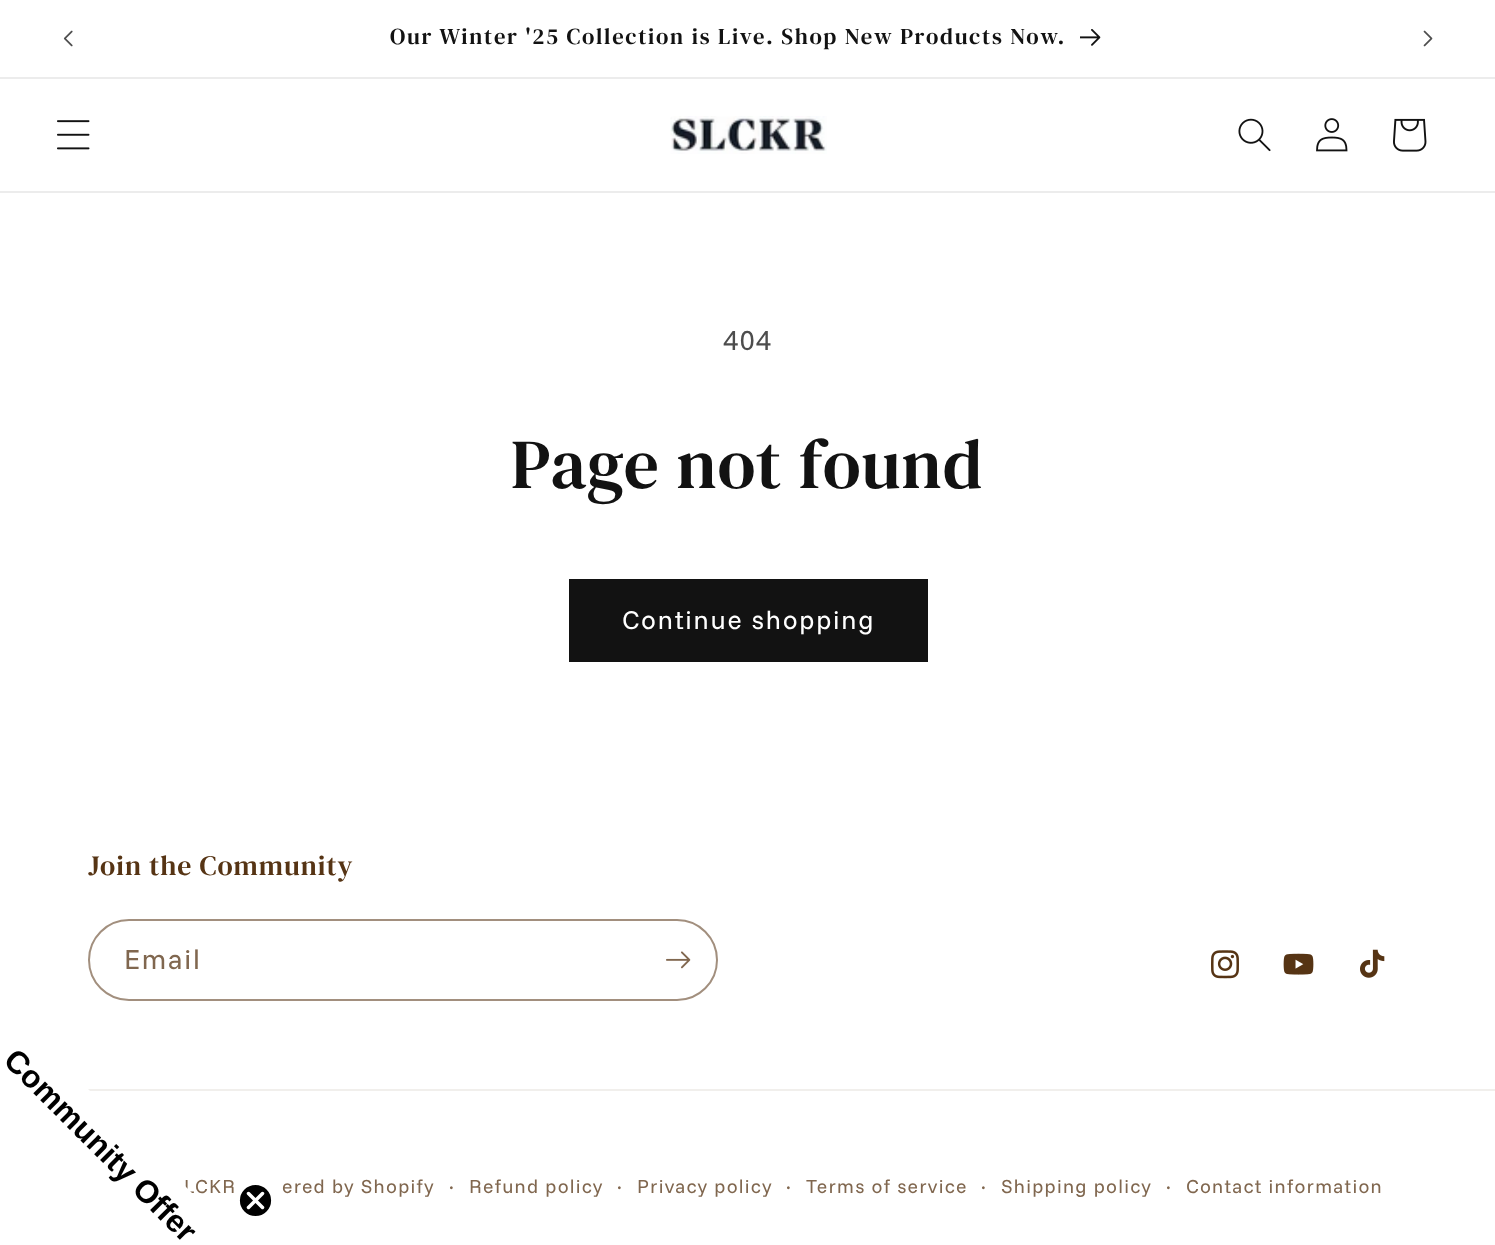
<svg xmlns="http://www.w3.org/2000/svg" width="1495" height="1245">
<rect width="100%" height="100%" fill="#fff"/>
<rect y="77" width="1495" height="2" fill="#ececec"/>
<image x="63" y="30" width="10" height="17" href="media/1.png"/>
<text x="390" y="44" style="font-family:DM Serif Text;font-size:22.75px;letter-spacing:1.75px;fill:#121212">Our Winter '25 Collection is Live. Shop New Products Now.</text>
<image x="1080" y="29" width="21" height="17" href="media/2.png"/>
<image x="1423" y="30" width="10" height="17" href="media/3.png"/>
<rect y="191" width="1495" height="2" fill="#ececec"/>
<image x="57" y="120" width="33" height="30" href="media/4.png"/>
<image x="670" y="116" width="157" height="38" href="media/5.png"/>
<image x="1238" y="118" width="33" height="34" href="media/6.png"/>
<image x="1316" y="118" width="32" height="34" href="media/7.png"/>
<image x="1393" y="118" width="34" height="34" href="media/8.png"/>
<text x="723" y="350" style="font-family:Funnel Sans;font-size:28px;letter-spacing:1px;fill:#4d4d4d">404</text>
<text x="511" y="488" style="font-family:DM Serif Text;font-size:70px;letter-spacing:1px;fill:#121212">Page not found</text>
<rect x="569" y="579" width="359" height="83" fill="#121212"/>
<text x="622" y="629" style="font-family:Funnel Sans;font-size:26.25px;letter-spacing:1.75px;fill:#fff">Continue shopping</text>
<text x="88" y="875" style="font-family:DM Serif Text;font-size:28px;letter-spacing:1px;fill:#563414">Join the Community</text>
<rect x="89" y="920" width="628" height="80" rx="40" fill="none" stroke="#a28f7e" stroke-width="2"/>
<text x="124" y="969" style="font-family:Funnel Sans;font-size:28px;letter-spacing:1.75px;fill:#80674f">Email</text>
<image x="666" y="951" width="25" height="18" href="media/9.png"/>
<image x="1211" y="950" width="28" height="29" href="media/10.png"/>
<image x="1283" y="953" width="31" height="22" href="media/11.png"/>
<image x="1360" y="949" width="25" height="29" href="media/12.png"/>
<rect x="88" y="1089" width="1407" height="2" fill="#f1efec"/>
<text x="184" y="1193" style="font-family:Funnel Sans;font-size:19.25px;letter-spacing:1.25px;fill:#80674f">LCKR</text>
<text x="282" y="1193" style="font-family:Funnel Sans;font-size:19.25px;letter-spacing:1.25px;fill:#80674f">ered by Shopify</text>
<text x="449" y="1193" style="font-family:Funnel Sans;font-size:21px;letter-spacing:1.25px;fill:#80674f">·</text>
<text x="469" y="1193" style="font-family:Funnel Sans;font-size:19.25px;letter-spacing:1.25px;fill:#80674f">Refund policy</text>
<text x="617" y="1193" style="font-family:Funnel Sans;font-size:21px;letter-spacing:1.25px;fill:#80674f">·</text>
<text x="637" y="1193" style="font-family:Funnel Sans;font-size:19.25px;letter-spacing:1.25px;fill:#80674f">Privacy policy</text>
<text x="786" y="1193" style="font-family:Funnel Sans;font-size:21px;letter-spacing:1.25px;fill:#80674f">·</text>
<text x="806" y="1193" style="font-family:Funnel Sans;font-size:19.25px;letter-spacing:1.25px;fill:#80674f">Terms of service</text>
<text x="981" y="1193" style="font-family:Funnel Sans;font-size:21px;letter-spacing:1.25px;fill:#80674f">·</text>
<text x="1001" y="1193" style="font-family:Funnel Sans;font-size:19.25px;letter-spacing:1.25px;fill:#80674f">Shipping policy</text>
<text x="1166" y="1193" style="font-family:Funnel Sans;font-size:21px;letter-spacing:1.25px;fill:#80674f">·</text>
<text x="1186" y="1193" style="font-family:Funnel Sans;font-size:19.25px;letter-spacing:1.25px;fill:#80674f">Contact information</text>
<path d="M0 1001v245h245z" fill="#fff"/>
<text x="2" y="1062" transform="rotate(45 2 1062)" style="font-family:Liberation Sans;font-size:31.5px;font-weight:bold;fill:#000">Community Offer</text>
<circle cx="255.5" cy="1200.5" r="16.5" fill="#000" stroke="#fff" stroke-width="1.8"/>
<path d="M248.5 1193.5l14 14m-14 0l14-14z" fill="none" stroke="#fff" stroke-width="3.5" stroke-linecap="round" stroke-linejoin="round"/>
</svg>
